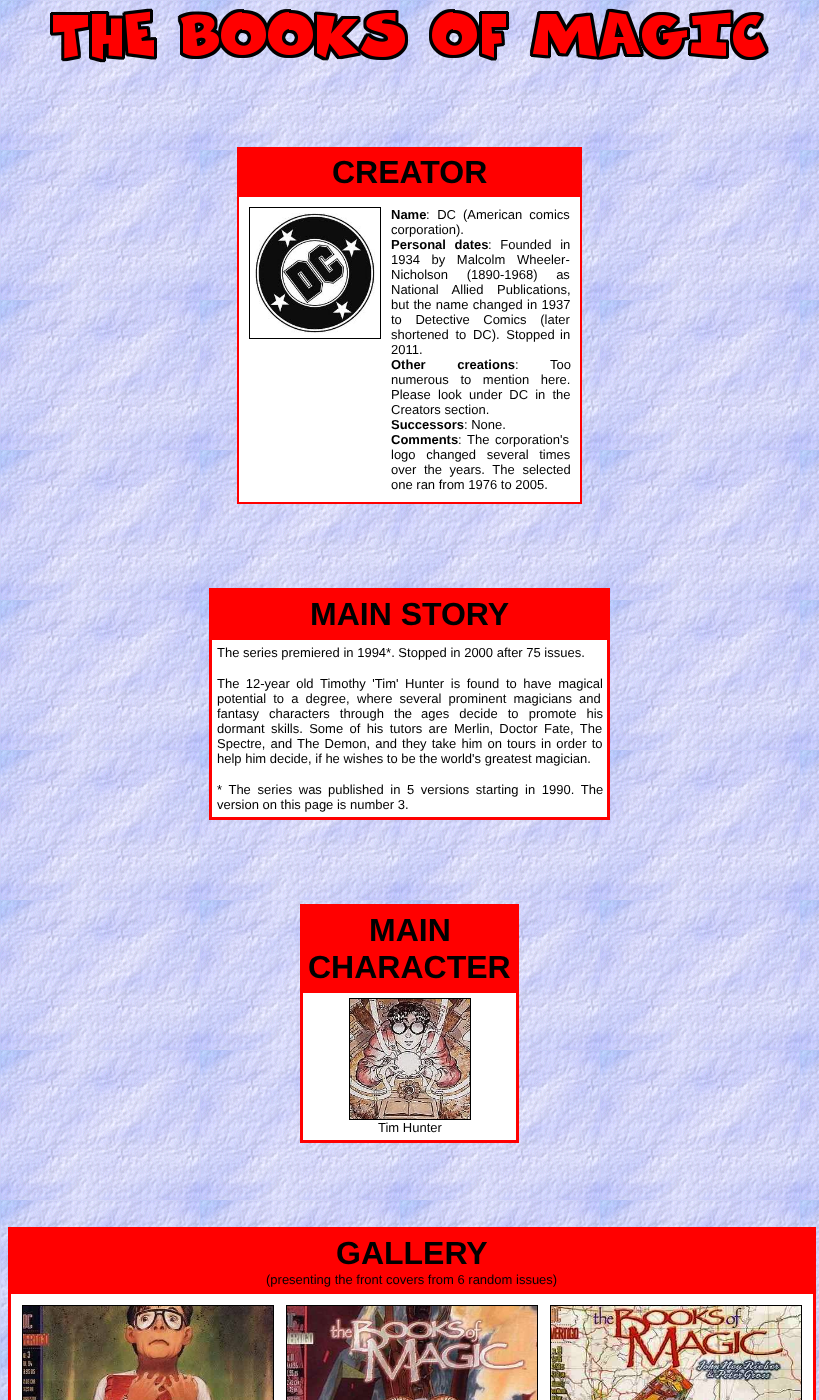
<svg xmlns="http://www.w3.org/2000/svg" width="819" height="1400">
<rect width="100%" height="100%" fill="#fff"/>
<image x="0" y="0" width="819" height="1400" href="media/1.png"/>
<image x="50" y="8" width="719" height="55" href="media/2.png"/>
<rect x="237" y="147" width="345" height="2" fill="#f00"/>
<rect x="237" y="196" width="345" height="1" fill="#f00"/>
<rect x="580" y="147" width="2" height="357" fill="#f00"/>
<rect x="237" y="502" width="345" height="2" fill="#f00"/>
<rect x="237" y="147" width="2" height="357" fill="#f00"/>
<rect x="239" y="149" width="341" height="47" fill="#f00"/>
<text x="332" y="183" style="font-family:Liberation Sans;font-size:32px;font-weight:bold;fill:#000">CREATOR</text>
<rect x="239" y="197" width="341" height="305" fill="#fff"/>
<rect x="249.5" y="207.5" width="131" height="131" fill="none" stroke="#000"/>
<image x="255" y="213" width="120" height="120" href="media/3.png"/>
<text x="391" y="219" style="font-family:Liberation Sans;font-size:13px;font-weight:bold;fill:#000">Name</text>
<text x="426" y="219" word-spacing="4" style="font-family:Liberation Sans;font-size:13px;fill:#000">: DC</text>
<text x="463" y="219" word-spacing="3.5" style="font-family:Liberation Sans;font-size:13px;fill:#000">(American comics</text>
<text x="391" y="234" style="font-family:Liberation Sans;font-size:13px;fill:#000">corporation).</text>
<text x="391" y="249" word-spacing="5" style="font-family:Liberation Sans;font-size:13px;font-weight:bold;fill:#000">Personal dates</text>
<text x="488" y="249" word-spacing="5" style="font-family:Liberation Sans;font-size:13px;fill:#000">: Founded in</text>
<text x="391" y="264" word-spacing="8" style="font-family:Liberation Sans;font-size:13px;fill:#000">1934 by Malcolm</text>
<text x="517" y="264" style="font-family:Liberation Sans;font-size:13px;fill:#000">Wheeler-</text>
<text x="391" y="279" word-spacing="15" style="font-family:Liberation Sans;font-size:13px;fill:#000">Nicholson (1890-1968) as</text>
<text x="391" y="294" word-spacing="10" style="font-family:Liberation Sans;font-size:13px;fill:#000">National Allied Publications,</text>
<text x="391" y="309" word-spacing="0.75" style="font-family:Liberation Sans;font-size:13px;fill:#000">but the name changed in 1937</text>
<text x="391" y="324" word-spacing="10" style="font-family:Liberation Sans;font-size:13px;fill:#000">to Detective Comics (later</text>
<text x="391" y="339" word-spacing="3" style="font-family:Liberation Sans;font-size:13px;fill:#000">shortened to DC). Stopped</text>
<text x="560" y="339" style="font-family:Liberation Sans;font-size:13px;fill:#000">in</text>
<text x="391" y="354" style="font-family:Liberation Sans;font-size:13px;fill:#000">2011.</text>
<text x="391" y="369" word-spacing="28" style="font-family:Liberation Sans;font-size:13px;font-weight:bold;fill:#000">Other creations</text>
<text x="515" y="369" word-spacing="28" style="font-family:Liberation Sans;font-size:13px;fill:#000">: Too</text>
<text x="391" y="384" word-spacing="8" style="font-family:Liberation Sans;font-size:13px;fill:#000">numerous to mention here.</text>
<text x="391" y="399" style="font-family:Liberation Sans;font-size:13px;fill:#000">Please</text>
<text x="438" y="399" word-spacing="3.5" style="font-family:Liberation Sans;font-size:13px;fill:#000">look under DC in the</text>
<text x="391" y="414" style="font-family:Liberation Sans;font-size:13px;fill:#000">Creators section.</text>
<text x="391" y="429" style="font-family:Liberation Sans;font-size:13px;font-weight:bold;fill:#000">Successors</text>
<text x="464" y="429" style="font-family:Liberation Sans;font-size:13px;fill:#000">: None.</text>
<text x="391" y="444" style="font-family:Liberation Sans;font-size:13px;font-weight:bold;fill:#000">Comments</text>
<text x="458" y="444" word-spacing="2" style="font-family:Liberation Sans;font-size:13px;fill:#000">: The corporation's</text>
<text x="391" y="459" word-spacing="7" style="font-family:Liberation Sans;font-size:13px;fill:#000">logo changed several times</text>
<text x="391" y="474" word-spacing="4" style="font-family:Liberation Sans;font-size:13px;fill:#000">over the years. The selected</text>
<text x="391" y="489" style="font-family:Liberation Sans;font-size:13px;fill:#000">one ran from 1976 to 2005.</text>
<rect x="210" y="589" width="399" height="230" fill="none" stroke="#f00" stroke-width="2"/>
<rect x="211" y="590" width="397" height="49" fill="#f00"/>
<text x="310" y="625" style="font-family:Liberation Sans;font-size:32px;font-weight:bold;fill:#000">MAIN STORY</text>
<rect x="211.5" y="639.5" width="396" height="178" fill="#fff" stroke="#f00"/>
<text x="217" y="657" style="font-family:Liberation Sans;font-size:13px;fill:#000">The series premiered in 1994*. Stopped in 2000 after 75 issues.</text>
<text x="217" y="688" word-spacing="2.75" style="font-family:Liberation Sans;font-size:13px;fill:#000">The 12-year old</text>
<text x="320" y="688" word-spacing="3" style="font-family:Liberation Sans;font-size:13px;fill:#000">Timothy 'Tim' Hunter is found to have magical</text>
<text x="217" y="703" word-spacing="3.5" style="font-family:Liberation Sans;font-size:13px;fill:#000">potential to a degree,</text>
<text x="357" y="703" word-spacing="3.5" style="font-family:Liberation Sans;font-size:13px;fill:#000">where several prominent magicians and</text>
<text x="217" y="718" word-spacing="6.5" style="font-family:Liberation Sans;font-size:13px;fill:#000">fantasy characters through the</text>
<text x="421" y="718" word-spacing="6.5" style="font-family:Liberation Sans;font-size:13px;fill:#000">ages decide to promote his</text>
<text x="217" y="733" word-spacing="2.75" style="font-family:Liberation Sans;font-size:13px;fill:#000">dormant skills. Some of his tutors are</text>
<text x="454" y="733" word-spacing="2.75" style="font-family:Liberation Sans;font-size:13px;fill:#000">Merlin, Doctor Fate, The</text>
<text x="217" y="748" word-spacing="1.5" style="font-family:Liberation Sans;font-size:13px;fill:#000">Spectre, and The Demon, and they take him on</text>
<text x="507" y="748" word-spacing="1.5" style="font-family:Liberation Sans;font-size:13px;fill:#000">tours in order to</text>
<text x="217" y="763" style="font-family:Liberation Sans;font-size:13px;fill:#000">help him decide, if he wishes to be the world's greatest magician.</text>
<text x="217" y="794" word-spacing="3" style="font-family:Liberation Sans;font-size:13px;fill:#000">* The series was</text>
<text x="328" y="794" word-spacing="3" style="font-family:Liberation Sans;font-size:13px;fill:#000">published in 5 versions starting in 1990. The</text>
<text x="217" y="809" style="font-family:Liberation Sans;font-size:13px;fill:#000">version on this page is number 3.</text>
<rect x="301" y="905" width="217" height="237" fill="none" stroke="#f00" stroke-width="2"/>
<rect x="302" y="906" width="215" height="86" fill="#f00"/>
<text x="369" y="941" style="font-family:Liberation Sans;font-size:32px;font-weight:bold;fill:#000">MAIN</text>
<text x="308" y="978" style="font-family:Liberation Sans;font-size:32px;font-weight:bold;fill:#000">CHARACTER</text>
<rect x="302.5" y="992.5" width="214" height="148" fill="#fff" stroke="#f00"/>
<rect x="349.5" y="998.5" width="121" height="121" fill="none" stroke="#000"/>
<image x="350" y="999" width="120" height="120" href="media/4.png"/>
<text x="378" y="1132" style="font-family:Liberation Sans;font-size:13px;fill:#000">Tim Hunter</text>
<rect x="9" y="1228" width="806" height="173" fill="none" stroke="#f00" stroke-width="2"/>
<rect x="10" y="1229" width="804" height="64" fill="#f00"/>
<text x="336" y="1264" style="font-family:Liberation Sans;font-size:32px;font-weight:bold;fill:#000">GALLERY</text>
<text x="266" y="1284" style="font-family:Liberation Sans;font-size:13px;fill:#000">(presenting the front covers from 6 random issues)</text>
<rect x="10.5" y="1293.5" width="803" height="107" fill="#fff" stroke="#f00"/>
<rect x="22.5" y="1305.5" width="251" height="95" fill="none" stroke="#000"/>
<image x="23" y="1306" width="250" height="94" href="media/5.png"/>
<rect x="286.5" y="1305.5" width="251" height="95" fill="none" stroke="#000"/>
<image x="287" y="1306" width="250" height="94" href="media/6.png"/>
<rect x="550.5" y="1305.5" width="251" height="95" fill="none" stroke="#000"/>
<image x="551" y="1306" width="250" height="94" href="media/7.png"/>
</svg>
